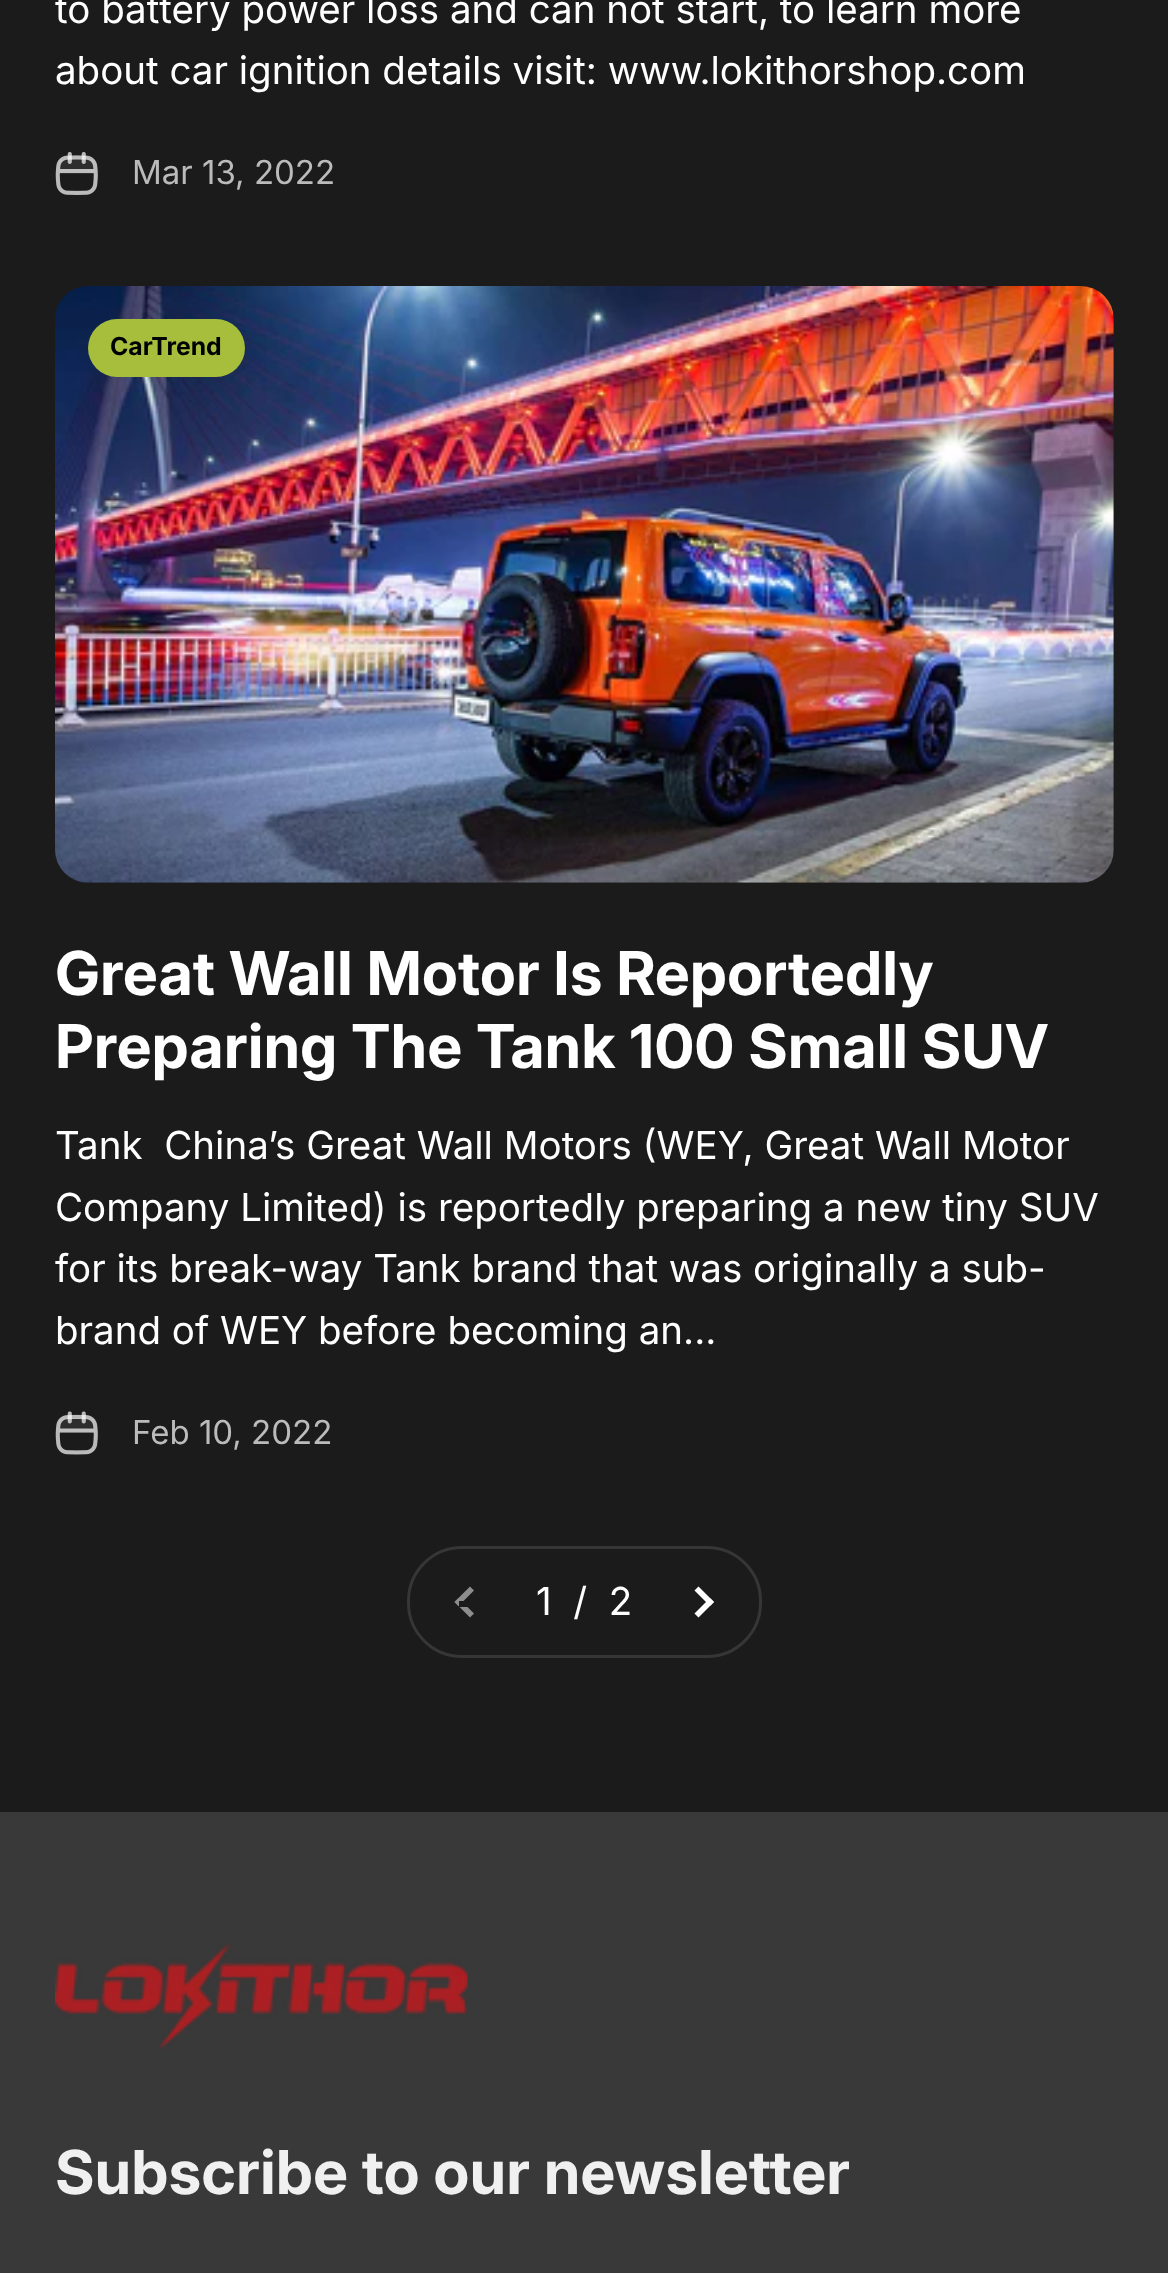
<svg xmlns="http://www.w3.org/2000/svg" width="1168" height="2273">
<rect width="100%" height="100%" fill="#1b1b1b"/>
<text x="55" y="23" style="font-family:Inter;font-size:38.5px;fill:#fff">to battery power loss and can not start, to learn more</text>
<text x="55" y="84" style="font-family:Inter;font-size:38.5px;fill:#fff">about car ignition details visit: www.lokithorshop.com</text>
<image x="55" y="152" width="43" height="43" href="media/1.png"/>
<text x="132" y="184" style="font-family:Inter;font-size:33px;fill:#bbb">Mar 13, 2022</text>
<image x="55" y="286" width="1059" height="597" href="media/2.png"/>
<rect x="88" y="319" width="157" height="58" rx="29" fill="#a7be3d"/>
<text x="110" y="355" style="font-family:'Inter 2';font-size:24.75px;font-weight:bold;fill:#000">CarTrend</text>
<text x="55" y="995" style="font-family:Inter;font-size:60.5px;font-weight:bold;fill:#fff">Great Wall Motor Is Reportedly</text>
<text x="55" y="1068" style="font-family:Inter;font-size:60.5px;font-weight:bold;fill:#fff">Preparing The Tank 100 Small SUV</text>
<text x="55" y="1159" style="font-family:Inter;font-size:38.5px;fill:#fff" xml:space="preserve">Tank  China’s Great Wall Motors (WEY, Great Wall Motor</text>
<text x="55" y="1221" style="font-family:Inter;font-size:38.5px;fill:#fff">Company Limited) is reportedly preparing a new tiny SUV</text>
<text x="55" y="1282" style="font-family:Inter;font-size:38.5px;fill:#fff">for its break-way Tank brand that was originally a sub-</text>
<text x="55" y="1344" style="font-family:Inter;font-size:38.5px;fill:#fff">brand of WEY before becoming an...</text>
<image x="55" y="1411" width="43" height="44" href="media/3.png"/>
<text x="132" y="1444" style="font-family:Inter;font-size:33px;fill:#bbb">Feb 10, 2022</text>
<rect x="408.5" y="1547.5" width="352" height="109" rx="53.5" fill="none" stroke="#363636" stroke-width="3"/>
<path d="M470 1617.5l-15.5-15.5l4-4l15.5 15.5z" fill="#8d8d8d"/>
<path d="M458.5 1606l-4-4l15.5-15.5l4 4z" fill="#8d8d8d"/>
<rect x="459" y="1601" width="14" height="6" fill="#1b1b1b"/>
<text x="536" y="1615" style="font-family:Inter;font-size:38.5px;fill:#fff" xml:space="preserve">1  /  2</text>
<path d="M698.5 1586.5l15.5 15.5l-4 4l-15.5-15.5z" fill="#fff"/>
<path d="M710 1598l4 4l-15.5 15.5l-4-4z" fill="#fff"/>
<rect y="1812" width="1168" height="461" fill="#393939"/>
<image x="55" y="1944" width="413" height="105" href="media/4.png"/>
<text x="55" y="2194" style="font-family:Inter;font-size:60.5px;font-weight:bold;fill:#f0f0f0">Subscribe to our newsletter</text>
</svg>
